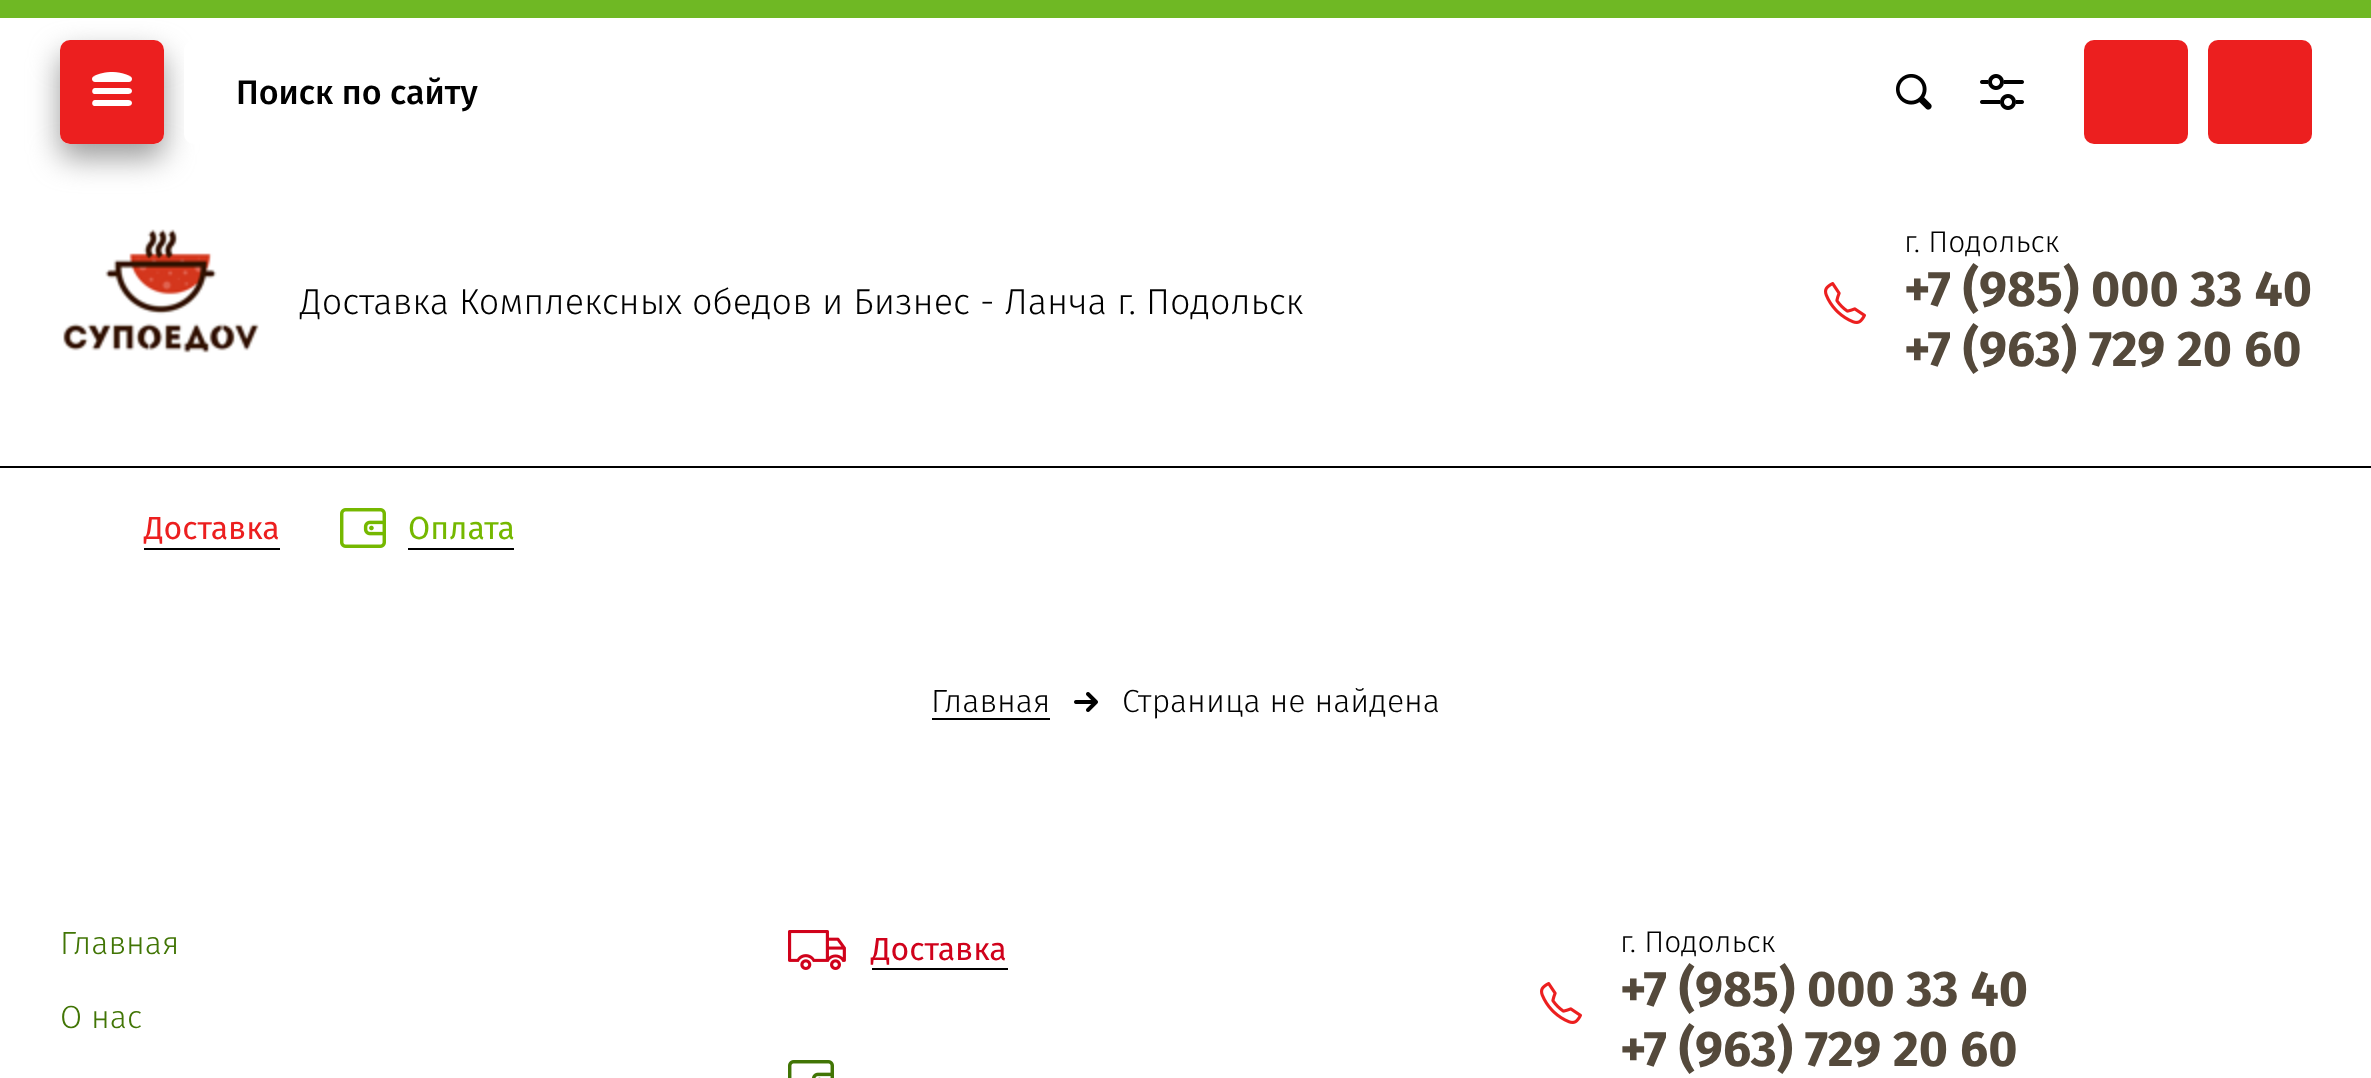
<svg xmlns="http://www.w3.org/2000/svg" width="2371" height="1078">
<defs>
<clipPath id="clip1"><path d="M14 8h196v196h-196zm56 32h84c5.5 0 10 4.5 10 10v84c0 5.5-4.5 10-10 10h-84c-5.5 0-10-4.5-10-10v-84c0-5.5 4.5-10 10-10z" clip-rule="evenodd"/></clipPath>
<clipPath id="clip2"><rect x="92" y="88" width="40" height="6"/></clipPath>
<clipPath id="clip3"><rect x="92" y="100" width="40" height="6"/></clipPath>
</defs>
<rect width="100%" height="100%" fill="#fff"/>
<rect width="2371" height="18" fill="#6fb824"/>
<g clip-path="url(#clip1)">
<rect x="60" y="54" width="104" height="104" rx="10" fill="#9b9b9b" filter="blur(15px)"/>
</g>
<rect x="60" y="40" width="104" height="104" rx="10" fill="#eb1313f2"/>
<g clip-path="url(#clip2)">
<path d="M95 88h28c2 0 9-1 9 3c0 4-7 3-9 3h-29c-3-1-2-6 1-6z" fill="#fff"/>
</g>
<image x="92" y="72" width="40" height="10" href="media/1.png"/>
<g clip-path="url(#clip3)">
<path d="M95 100h28c2 0 9-1 9 3c0 4-7 3-9 3h-29c-3-1-2-6 1-6z" fill="#fff"/>
</g>
<rect x="184" y="40" width="1880" height="104" rx="10" fill="#fff"/>
<text x="236" y="104" style="font-family:Fira Sans;font-size:34px;font-weight:500;fill:#000">Поиск по сайту</text>
<image x="1896" y="74" width="36" height="36" href="media/2.png"/>
<image x="1980" y="74" width="44" height="36" href="media/3.png"/>
<rect x="2084" y="40" width="104" height="104" rx="10" fill="#ec1f1f"/>
<rect x="2208" y="40" width="104" height="104" rx="10" fill="#ec1f1f"/>
<image x="63" y="229" width="196" height="124" href="media/4.png"/>
<text x="300" y="314" style="font-family:Fira Sans;font-size:36px;font-weight:300;fill:#000">Доставка Комплексных обедов и Бизнес - Ланча г. Подольск</text>
<text x="1904" y="252" style="font-family:Fira Sans;font-size:30px;font-weight:300;fill:#000">г. Подольск</text>
<image x="1824" y="282" width="42" height="42" href="media/5.png"/>
<text x="1904" y="306" style="font-family:Fira Sans;font-size:50px;font-weight:bold;fill:#54493b">+7 (985) 000 33 40</text>
<text x="1904" y="366" style="font-family:Fira Sans;font-size:50px;font-weight:bold;fill:#54493b">+7 (963) 729 20 60</text>
<rect y="466" width="2371" height="2" fill="#000"/>
<text x="144" y="539" style="font-family:Fira Sans;font-size:32px;fill:#ec1f1f">Доставка</text>
<rect x="144" y="548" width="136" height="2" fill="#000"/>
<image x="340" y="508" width="46" height="40" href="media/6.png"/>
<text x="408" y="539" style="font-family:Fira Sans;font-size:32px;fill:#75b800">Оплата</text>
<rect x="408" y="548" width="106" height="2" fill="#000"/>
<rect x="932" y="718" width="118" height="2" fill="#000"/>
<text x="931" y="712" style="font-family:Fira Sans;font-size:32px;font-weight:300;fill:#000">Главная</text>
<image x="1074" y="692" width="24" height="20" href="media/7.png"/>
<text x="1122" y="712" style="font-family:Fira Sans;font-size:32px;font-weight:300;fill:#000">Страница не найдена</text>
<text x="60" y="954" style="font-family:Fira Sans;font-size:32px;font-weight:300;fill:#417505">Главная</text>
<text x="60" y="1028" style="font-family:Fira Sans;font-size:32px;font-weight:300;fill:#417505">О нас</text>
<image x="788" y="930" width="58" height="40" href="media/8.png"/>
<text x="871" y="960" style="font-family:Fira Sans;font-size:32px;fill:#d0021b">Доставка</text>
<rect x="872" y="968" width="136" height="2" fill="#000"/>
<image x="788" y="1060" width="46" height="18" href="media/9.png"/>
<text x="1620" y="952" style="font-family:Fira Sans;font-size:30px;font-weight:300;fill:#000">г. Подольск</text>
<image x="1540" y="982" width="42" height="42" href="media/5.png"/>
<text x="1620" y="1006" style="font-family:Fira Sans;font-size:50px;font-weight:bold;fill:#54493b">+7 (985) 000 33 40</text>
<text x="1620" y="1066" style="font-family:Fira Sans;font-size:50px;font-weight:bold;fill:#54493b">+7 (963) 729 20 60</text>
</svg>
